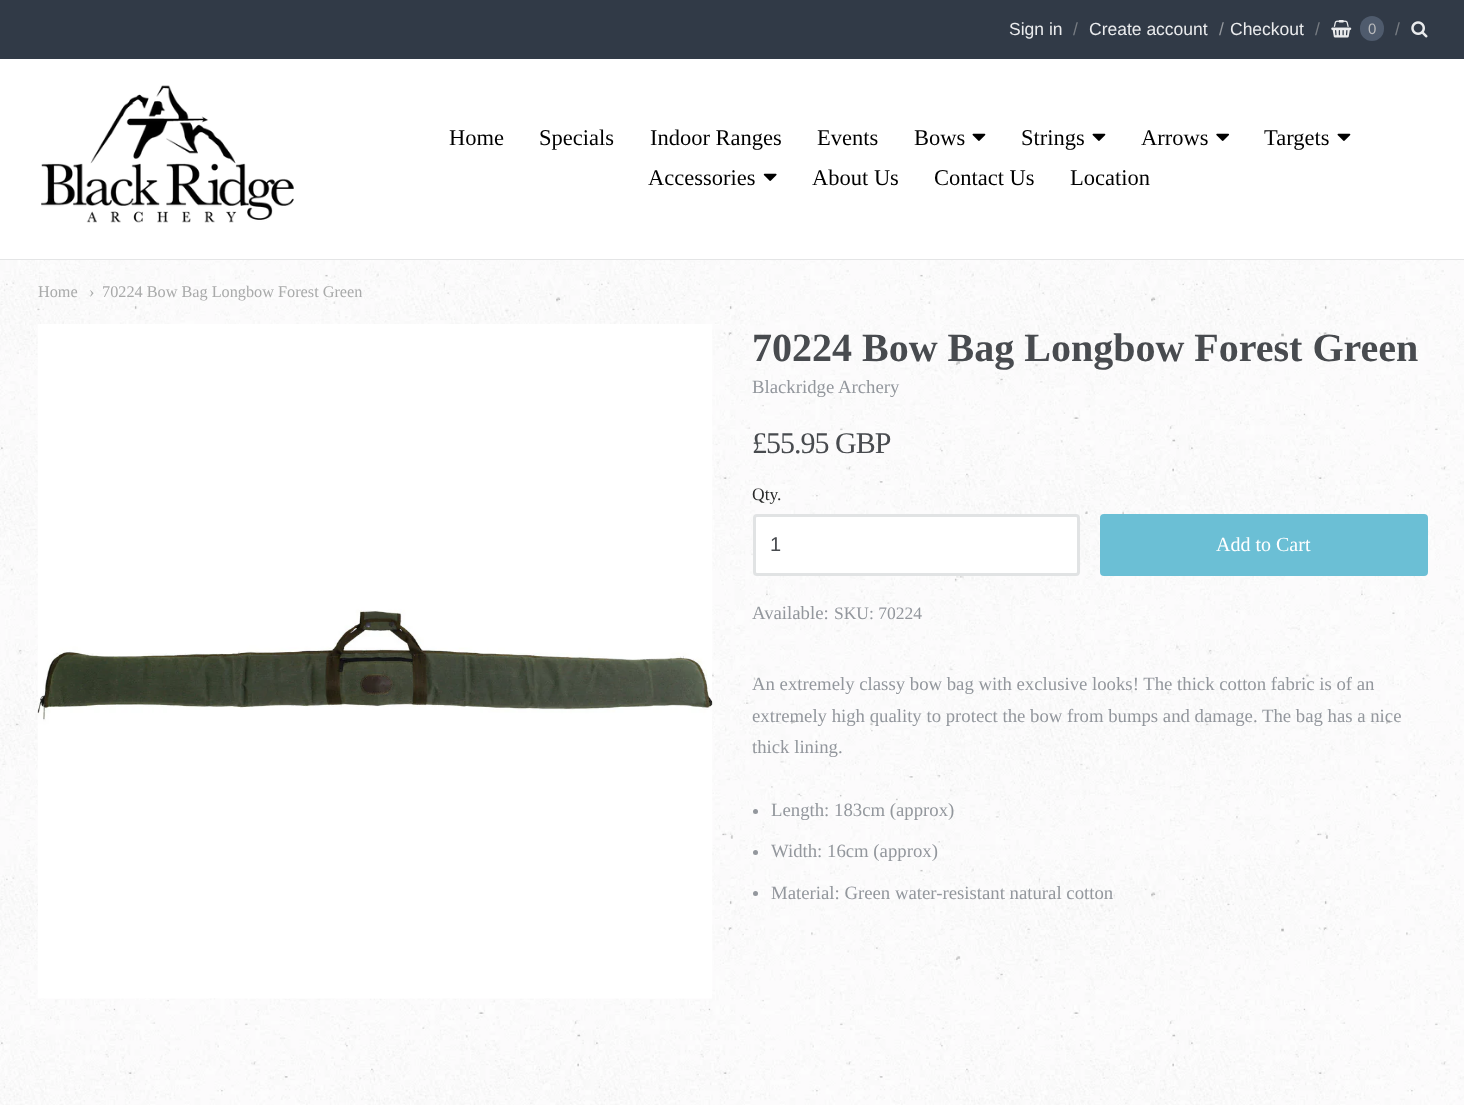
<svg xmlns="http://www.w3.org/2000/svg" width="1464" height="1105">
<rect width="100%" height="100%" fill="#313a47"/>
<text x="1009" y="35" style="font-family:Liberation Sans;font-size:17.5px;fill:#eaebed">Sign in</text>
<text x="1073" y="35" style="font-family:Liberation Sans;font-size:17.5px;fill:#767b82">/</text>
<text x="1089" y="35" style="font-family:Liberation Sans;font-size:17.5px;fill:#eaebed">Create account</text>
<text x="1219" y="35" style="font-family:Liberation Sans;font-size:17.5px;fill:#93979d">/</text>
<text x="1230" y="35" style="font-family:Liberation Sans;font-size:17.5px;fill:#eaebed">Checkout</text>
<text x="1315" y="35" style="font-family:Liberation Sans;font-size:17.5px;fill:#767b82">/</text>
<image x="1331" y="20" width="21" height="18" href="media/1.png"/>
<rect x="1360" y="16" width="24" height="25" rx="12" fill="#4f5b6d"/>
<text x="1368" y="34" style="font-family:Liberation Sans;font-size:15px;fill:#babbbd">0</text>
<text x="1395" y="35" style="font-family:Liberation Sans;font-size:17.5px;fill:#767b82">/</text>
<image x="1411" y="21" width="17" height="17" href="media/2.png"/>
<rect y="59" width="1464" height="200" fill="#fff"/>
<rect y="259" width="1464" height="1" fill="#e4e5e6"/>
<image x="41" y="85" width="253" height="138" href="media/3.png"/>
<text x="449" y="145" style="font-family:Liberation Serif;font-size:22.5px;fill:#000">Home</text>
<text x="539" y="145" style="font-family:Liberation Serif;font-size:22.5px;fill:#000">Specials</text>
<text x="650" y="145" style="font-family:Liberation Serif;font-size:22.5px;fill:#000">Indoor Ranges</text>
<text x="817" y="145" style="font-family:Liberation Serif;font-size:22.5px;fill:#000">Events</text>
<text x="914" y="145" style="font-family:Liberation Serif;font-size:22.5px;fill:#000">Bows</text>
<image x="972" y="133" width="14" height="8" href="media/4.png"/>
<text x="1021" y="145" style="font-family:Liberation Serif;font-size:22.5px;fill:#000">Strings</text>
<image x="1092" y="133" width="14" height="8" href="media/4.png"/>
<text x="1141" y="145" style="font-family:Liberation Serif;font-size:22.5px;fill:#000">Arrows</text>
<image x="1216" y="133" width="14" height="8" href="media/5.png"/>
<text x="1264" y="145" style="font-family:Liberation Serif;font-size:22.5px;fill:#000">Targets</text>
<image x="1337" y="133" width="14" height="8" href="media/4.png"/>
<text x="648" y="185" style="font-family:Liberation Serif;font-size:22.5px;fill:#000">Accessories</text>
<image x="763" y="173" width="14" height="8" href="media/6.png"/>
<text x="812" y="185" style="font-family:Liberation Serif;font-size:22.5px;fill:#000">About Us</text>
<text x="934" y="185" style="font-family:Liberation Serif;font-size:22.5px;fill:#000">Contact Us</text>
<text x="1070" y="185" style="font-family:Liberation Serif;font-size:22.5px;fill:#000">Location</text>
<image x="0" y="260" width="1464" height="845" href="media/7.png"/>
<text x="38" y="297" style="font-family:Liberation Serif;font-size:16.25px;fill:#a9aaaa">Home</text>
<text x="89" y="297" style="font-family:Liberation Serif;font-size:16.25px;fill:#a9aaaa">›</text>
<text x="102" y="297" style="font-family:Liberation Serif;font-size:16.25px;fill:#a9aaaa">70224 Bow Bag Longbow Forest Green</text>
<image x="37" y="324" width="676" height="675" href="media/8.png"/>
<text x="752" y="361" style="font-family:Liberation Serif;font-size:40px;font-weight:bold;fill:#484b4f">70224 Bow Bag Longbow Forest Green</text>
<text x="752" y="393" style="font-family:Liberation Serif;font-size:18.75px;fill:#93979d">Blackridge Archery</text>
<text x="752" y="453" style="font-family:Liberation Serif;font-size:30px;letter-spacing:-1px;fill:#484b4f">£55.95 GBP</text>
<text x="752" y="500" style="font-family:Liberation Serif;font-size:17.5px;fill:#2a2b2b">Qty.</text>
<rect x="754.5" y="515.5" width="324" height="59" rx="2.5" fill="#fff" stroke="#e1e3e4" stroke-width="3"/>
<text x="770" y="551" style="font-family:Liberation Sans;font-size:20px;fill:#484b4f">1</text>
<rect x="1101.5" y="515.5" width="325" height="59" rx="2.5" fill="#6bbfd5" stroke="#6bbfd5" stroke-width="3"/>
<text x="1216" y="551" style="font-family:Liberation Serif;font-size:20px;fill:#fff">Add to Cart</text>
<text x="752" y="619" style="font-family:Liberation Serif;font-size:18.75px;fill:#93979d">Available:</text>
<text x="834" y="619" style="font-family:Liberation Serif;font-size:17.5px;fill:#93979d">SKU: 70224</text>
<text x="752" y="690" style="font-family:Liberation Serif;font-size:18.75px;fill:#93979d">An extremely classy bow bag with exclusive looks! The thick cotton fabric is of an</text>
<text x="752" y="722" style="font-family:Liberation Serif;font-size:18.75px;fill:#93979d">extremely high quality to protect the bow from bumps and damage. The bag has a nice</text>
<text x="752" y="753" style="font-family:Liberation Serif;font-size:18.75px;fill:#93979d">thick lining.</text>
<circle cx="755.5" cy="811.5" r="2.5" fill="#93979d"/>
<text x="771" y="816" style="font-family:Liberation Serif;font-size:18.75px;fill:#93979d">Length: 183cm (approx)</text>
<circle cx="755.5" cy="852.5" r="2.5" fill="#93979d"/>
<text x="771" y="857" style="font-family:Liberation Serif;font-size:18.75px;fill:#93979d">Width: 16cm (approx)</text>
<circle cx="755.5" cy="893.5" r="2.5" fill="#93979d"/>
<text x="771" y="899" style="font-family:Liberation Serif;font-size:18.75px;fill:#93979d">Material: Green water-resistant natural cotton</text>
</svg>
